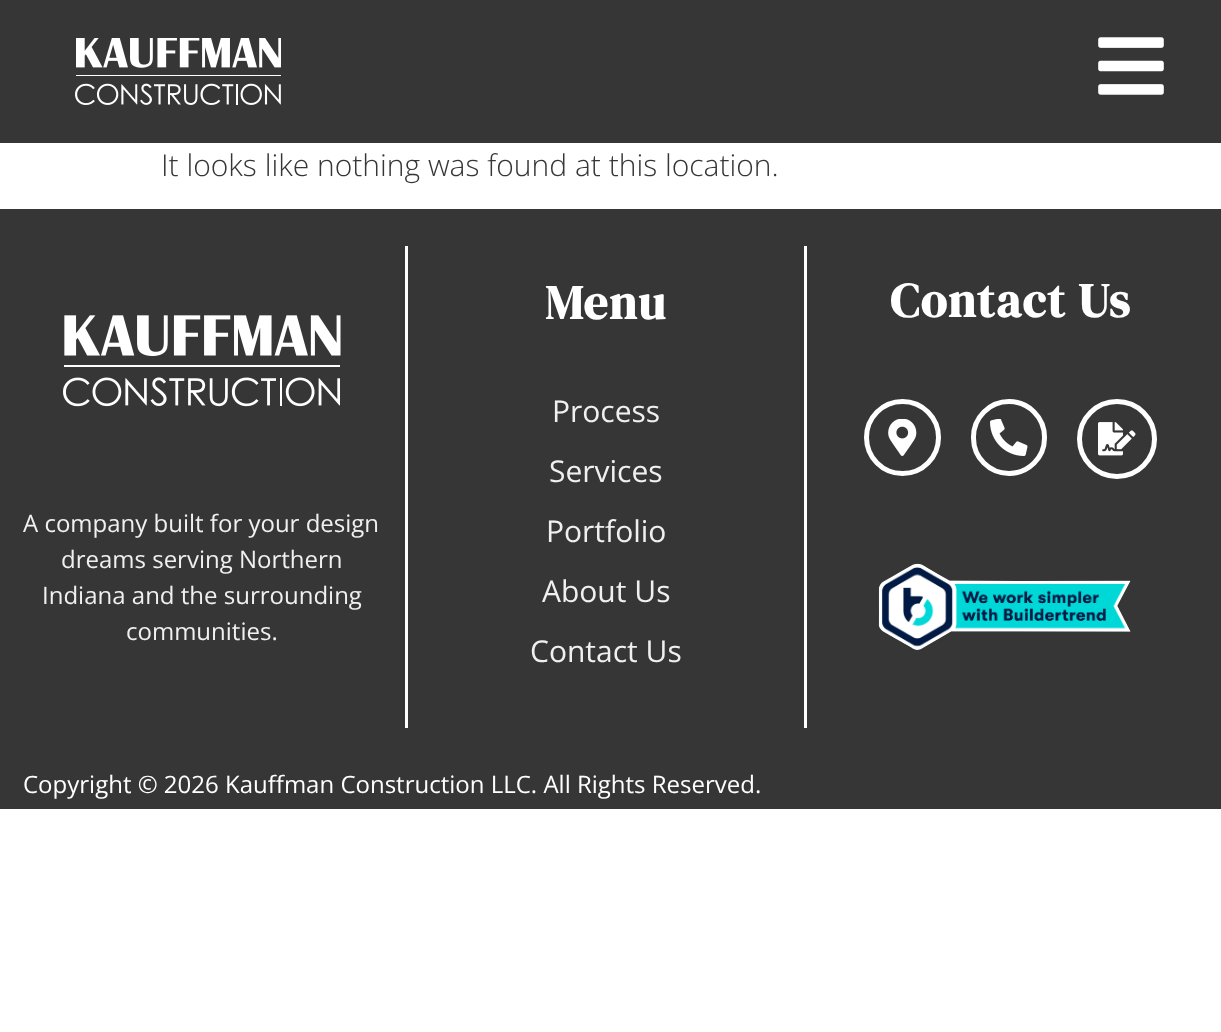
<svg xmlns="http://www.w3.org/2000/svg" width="1221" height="1032">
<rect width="100%" height="100%" fill="#fff"/>
<rect width="1221" height="143" fill="#363636"/>
<image x="75" y="38" width="206" height="67" href="media/1.png"/>
<image x="1098" y="37" width="66" height="58" href="media/2.png"/>
<text x="161" y="176" style="font-family:Open Sans;font-size:30px;font-weight:300;fill:#363636">It looks like nothing was found at this location.</text>
<rect y="209" width="1221" height="600" fill="#363636"/>
<image x="63" y="315" width="278" height="92" href="media/3.png"/>
<text x="23" y="532" style="font-family:Open Sans;font-size:24px;fill:#f0f0f0">A company built for your design</text>
<text x="61" y="568" style="font-family:Open Sans;font-size:24px;fill:#f0f0f0">dreams serving Northern</text>
<text x="42" y="604" style="font-family:Open Sans;font-size:24px;fill:#f0f0f0">Indiana and the surrounding</text>
<text x="126" y="640" style="font-family:Open Sans;font-size:24px;fill:#f0f0f0">communities.</text>
<rect x="804" y="246" width="3" height="482" fill="#fff"/>
<rect x="405" y="246" width="3" height="482" fill="#fff"/>
<text x="545" y="319" style="font-family:DM Serif Display;font-size:48px;font-weight:bold;letter-spacing:1.5px;fill:#fff">Menu</text>
<text x="552" y="422" style="font-family:Open Sans;font-size:30px;fill:#f0f0f0">Process</text>
<text x="549" y="482" style="font-family:Open Sans;font-size:30px;fill:#f0f0f0">Services</text>
<text x="546" y="542" style="font-family:Open Sans;font-size:30px;fill:#f0f0f0">Portfolio</text>
<text x="542" y="602" style="font-family:Open Sans;font-size:30px;fill:#f0f0f0">About Us</text>
<text x="530" y="662" style="font-family:Open Sans;font-size:30px;fill:#f0f0f0">Contact Us</text>
<text x="890" y="317" style="font-family:DM Serif Display;font-size:48px;font-weight:bold;letter-spacing:1.5px;fill:#fff">Contact Us</text>
<circle cx="902.5" cy="437.5" r="36" fill="none" stroke="#fff" stroke-width="5"/>
<image x="888" y="419" width="29" height="37" href="media/4.png"/>
<rect x="973.5" y="401.5" width="71" height="72" rx="35.5" fill="none" stroke="#fff" stroke-width="5"/>
<image x="990" y="419" width="38" height="37" href="media/5.png"/>
<circle cx="1117" cy="439" r="37.5" fill="none" stroke="#fff" stroke-width="5"/>
<image x="1098" y="422" width="38" height="34" href="media/6.png"/>
<image x="878" y="563" width="253" height="87" href="media/7.png"/>
<text x="23" y="793" style="font-family:Open Sans;font-size:24px;fill:#fff">Copyright © 2026 Kauffman Construction LLC. All Rights Reserved.</text>
</svg>
